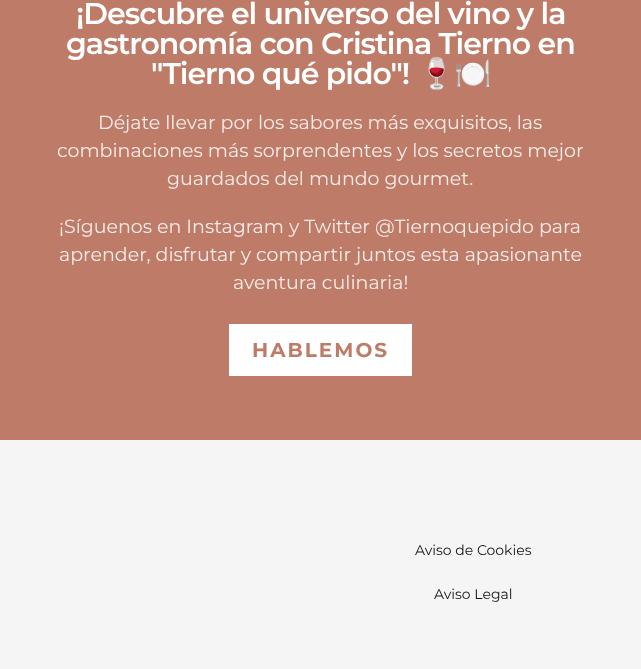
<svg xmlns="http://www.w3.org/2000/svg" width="641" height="669">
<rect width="100%" height="100%" fill="#f5f5f5"/>
<rect width="641" height="440" fill="#be7c68"/>
<text x="76" y="24" style="font-family:Montserrat;font-size:30px;font-weight:600;letter-spacing:-1px;fill:#fff">¡Descubre el universo del vino y la</text>
<text x="66" y="54" style="font-family:Montserrat;font-size:30px;font-weight:600;letter-spacing:-1px;fill:#fff">gastronomía con Cristina Tierno en</text>
<text x="151" y="84" style="font-family:Montserrat;font-size:30px;font-weight:600;letter-spacing:-1px;fill:#fff">"Tierno qué pido"!</text>
<text x="418" y="84" style="font-family:Noto Color Emoji;font-size:30px;font-weight:bold;letter-spacing:-1px;fill:#fff">🍷🍽️</text>
<text x="98" y="129" style="font-family:Montserrat;font-size:19px;fill:#f6ecea">Déjate llevar por los sabores más exquisitos, las</text>
<text x="57" y="157" style="font-family:Montserrat;font-size:19px;fill:#f6ecea">combinaciones más sorprendentes y los secretos mejor</text>
<text x="167" y="185" style="font-family:Montserrat;font-size:19px;fill:#f6ecea">guardados del mundo gourmet.</text>
<text x="59" y="233" style="font-family:Montserrat;font-size:19px;fill:#f6ecea">¡Síguenos en Instagram y Twitter @Tiernoquepido para</text>
<text x="59" y="261" style="font-family:Montserrat;font-size:19px;fill:#f6ecea">aprender, disfrutar y compartir juntos esta apasionante</text>
<text x="233" y="289" style="font-family:Montserrat;font-size:19px;fill:#f6ecea">aventura culinaria!</text>
<rect x="229" y="324" width="183" height="52" fill="#fff"/>
<text x="252" y="357" style="font-family:Montserrat;font-size:20px;font-weight:bold;letter-spacing:2px;fill:#be7c68">HABLEMOS</text>
<text x="415" y="555" style="font-family:Montserrat;font-size:14px;fill:#131516">Aviso de Cookies</text>
<text x="434" y="599" style="font-family:Montserrat;font-size:14px;fill:#131516">Aviso Legal</text>
</svg>
